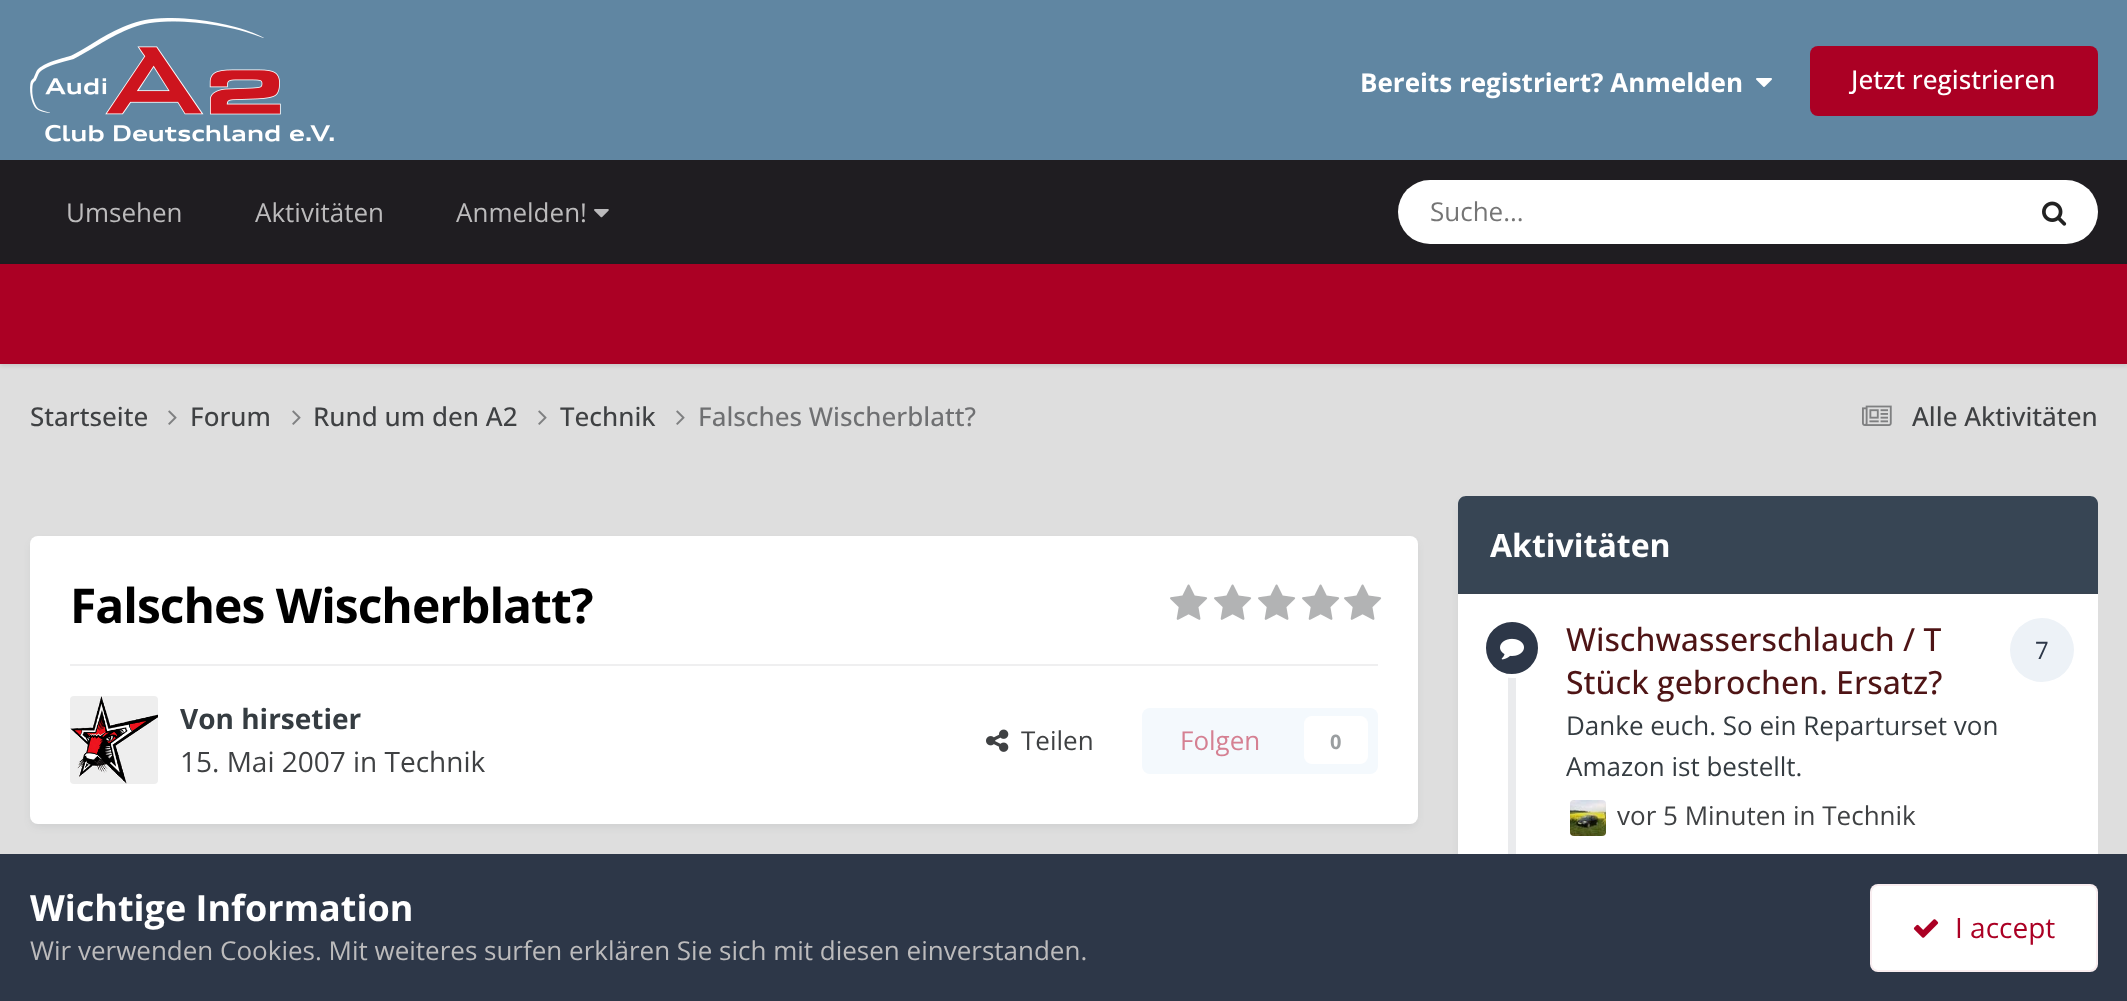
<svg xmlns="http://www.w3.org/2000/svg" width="2127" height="1001">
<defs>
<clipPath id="clip1"><rect x="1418" y="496" width="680" height="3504"/></clipPath>
</defs>
<rect width="100%" height="100%" fill="#dedede"/>
<rect width="2127" height="160" fill="#6086a2"/>
<image x="30" y="18" width="304" height="124" href="media/1.png"/>
<text x="1360" y="92" style="font-family:Open Sans;font-size:26px;font-weight:bold;fill:#fff">Bereits registriert? Anmelden</text>
<image x="1756" y="78" width="16" height="9" href="media/2.png"/>
<rect x="1810" y="46" width="288" height="70" rx="8" fill="#ab0024"/>
<text x="1851" y="89" style="font-family:Open Sans;font-size:26px;font-weight:500;fill:#fff">Jetzt registrieren</text>
<rect y="160" width="2127" height="104" fill="#1f1d21"/>
<text x="66" y="222" style="font-family:Open Sans;font-size:26px;fill:#bcbbbc">Umsehen</text>
<text x="255" y="222" style="font-family:Open Sans;font-size:26px;fill:#bcbbbc">Aktivitäten</text>
<text x="456" y="222" style="font-family:Open Sans;font-size:26px;fill:#bcbbbc">Anmelden!</text>
<image x="594" y="209" width="15" height="9" href="media/3.png"/>
<rect x="1398" y="180" width="700" height="64" rx="32" fill="#fff"/>
<text x="1430" y="221" style="font-family:Open Sans;font-size:26px;fill:#757575">Suche...</text>
<image x="2042" y="201" width="25" height="25" href="media/4.png"/>
<rect y="266" width="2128" height="100" fill="#0000001a" filter="blur(2px)"/>
<rect y="264" width="2127" height="100" fill="#ab0024"/>
<text x="30" y="426" style="font-family:Open Sans;font-size:26px;font-weight:500;fill:#3f4143">Startseite</text>
<image x="168" y="410" width="9" height="15" href="media/5.png"/>
<text x="190" y="426" style="font-family:Open Sans;font-size:26px;font-weight:500;fill:#3f4143">Forum</text>
<image x="292" y="410" width="9" height="15" href="media/5.png"/>
<text x="313" y="426" style="font-family:Open Sans;font-size:26px;font-weight:500;fill:#3f4143">Rund um den A2</text>
<image x="538" y="410" width="9" height="15" href="media/5.png"/>
<text x="560" y="426" style="font-family:Open Sans;font-size:26px;font-weight:500;fill:#3f4143">Technik</text>
<image x="676" y="410" width="9" height="15" href="media/5.png"/>
<text x="698" y="426" style="font-family:Open Sans;font-size:26px;font-weight:500;fill:#6f7072">Falsches Wischerblatt?</text>
<image x="1862" y="405" width="30" height="21" href="media/6.png"/>
<text x="1912" y="426" style="font-family:Open Sans;font-size:26px;font-weight:500;fill:#3f4143">Alle Aktivitäten</text>
<rect x="32" y="542" width="1384" height="284" rx="6" fill="#2d37481a" filter="blur(4px)"/>
<rect x="30" y="536" width="1388" height="288" rx="8" fill="#fff"/>
<text x="70" y="623" style="font-family:Open Sans;font-size:48px;font-weight:bold;letter-spacing:-1px;fill:#000">Falsches Wischerblatt?</text>
<image x="1170" y="584" width="38" height="36" href="media/7.png"/>
<image x="1214" y="584" width="38" height="36" href="media/7.png"/>
<image x="1258" y="584" width="38" height="36" href="media/7.png"/>
<image x="1302" y="584" width="38" height="36" href="media/7.png"/>
<image x="1344" y="584" width="38" height="36" href="media/7.png"/>
<rect x="70" y="664" width="1308" height="2" fill="#efeff0"/>
<image x="70" y="696" width="88" height="88" href="media/8.png"/>
<text x="180" y="729" style="font-family:Open Sans;font-size:28px;font-weight:bold;fill:#353c41">Von hirsetier</text>
<text x="180" y="772" style="font-family:Open Sans;font-size:28px;fill:#3f4143">15. Mai 2007 in Technik</text>
<image x="986" y="729" width="23" height="23" href="media/9.png"/>
<text x="1021" y="750" style="font-family:Open Sans;font-size:26px;fill:#3f4143">Teilen</text>
<rect x="1142" y="708" width="236" height="66" rx="8" fill="#f4f9fd"/>
<text x="1180" y="750" style="font-family:Open Sans;font-size:26px;fill:#d58092">Folgen</text>
<rect x="1304" y="716" width="64" height="48" rx="8" fill="#fff"/>
<text x="1330" y="749" style="font-family:Open Sans;font-size:20px;font-weight:bold;fill:#9a9ea0">0</text>
<g clip-path="url(#clip1)">
<rect x="1460" y="502" width="636" height="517" rx="6" fill="#2d37481a" filter="blur(4px)"/>
</g>
<rect x="1458" y="496" width="640" height="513" rx="8" fill="#fff"/>
<path d="M1466 496h624c4.5 0 8 3.5 8 8v90h-640v-90c0-4.5 3.5-8 8-8z" fill="#374554"/>
<rect x="1458" y="592" width="640" height="2" fill="#384451"/>
<text x="1490" y="557" style="font-family:Open Sans;font-size:32px;font-weight:bold;fill:#fff">Aktivitäten</text>
<rect x="1508" y="677" width="8" height="177" fill="#eaebed"/>
<circle cx="1512" cy="648" r="28" fill="#2d3748" stroke="#fff" stroke-width="4"/>
<image x="1500" y="638" width="24" height="22" href="media/10.png"/>
<text x="1566" y="651" style="font-family:Open Sans;font-size:32px;font-weight:500;fill:#4e1415">Wischwasserschlauch / T</text>
<text x="1566" y="694" style="font-family:Open Sans;font-size:32px;font-weight:500;fill:#4e1415">Stück gebrochen. Ersatz?</text>
<text x="1566" y="735" style="font-family:Open Sans;font-size:26px;fill:#353c41">Danke euch. So ein Reparturset von</text>
<text x="1566" y="776" style="font-family:Open Sans;font-size:26px;fill:#353c41">Amazon ist bestellt.</text>
<image x="1570" y="800" width="36" height="36" href="media/11.png"/>
<text x="1617" y="825" style="font-family:Open Sans;font-size:26px;fill:#3f4143">vor 5 Minuten in Technik</text>
<circle cx="2042" cy="650" r="32" fill="#edf2f7"/>
<text x="2035" y="659" style="font-family:Open Sans;font-size:24px;fill:#2d3748">7</text>
<rect y="854" width="2127" height="147" fill="#2d3748"/>
<text x="30" y="921" style="font-family:Open Sans;font-size:36px;font-weight:bold;fill:#fff">Wichtige Information</text>
<text x="30" y="960" style="font-family:Open Sans;font-size:26px;fill:#bcbbbc">Wir verwenden Cookies. Mit weiteres surfen erklären Sie sich mit diesen einverstanden.</text>
<rect x="1870" y="884" width="228" height="88" rx="8" fill="#fff"/>
<rect x="1871" y="885" width="226" height="86" rx="7" fill="none" stroke="#ab002412" stroke-width="2"/>
<image x="1913" y="919" width="26" height="19" href="media/12.png"/>
<text x="1955" y="938" style="font-family:Open Sans;font-size:28px;fill:#ab0024">I accept</text>
</svg>
